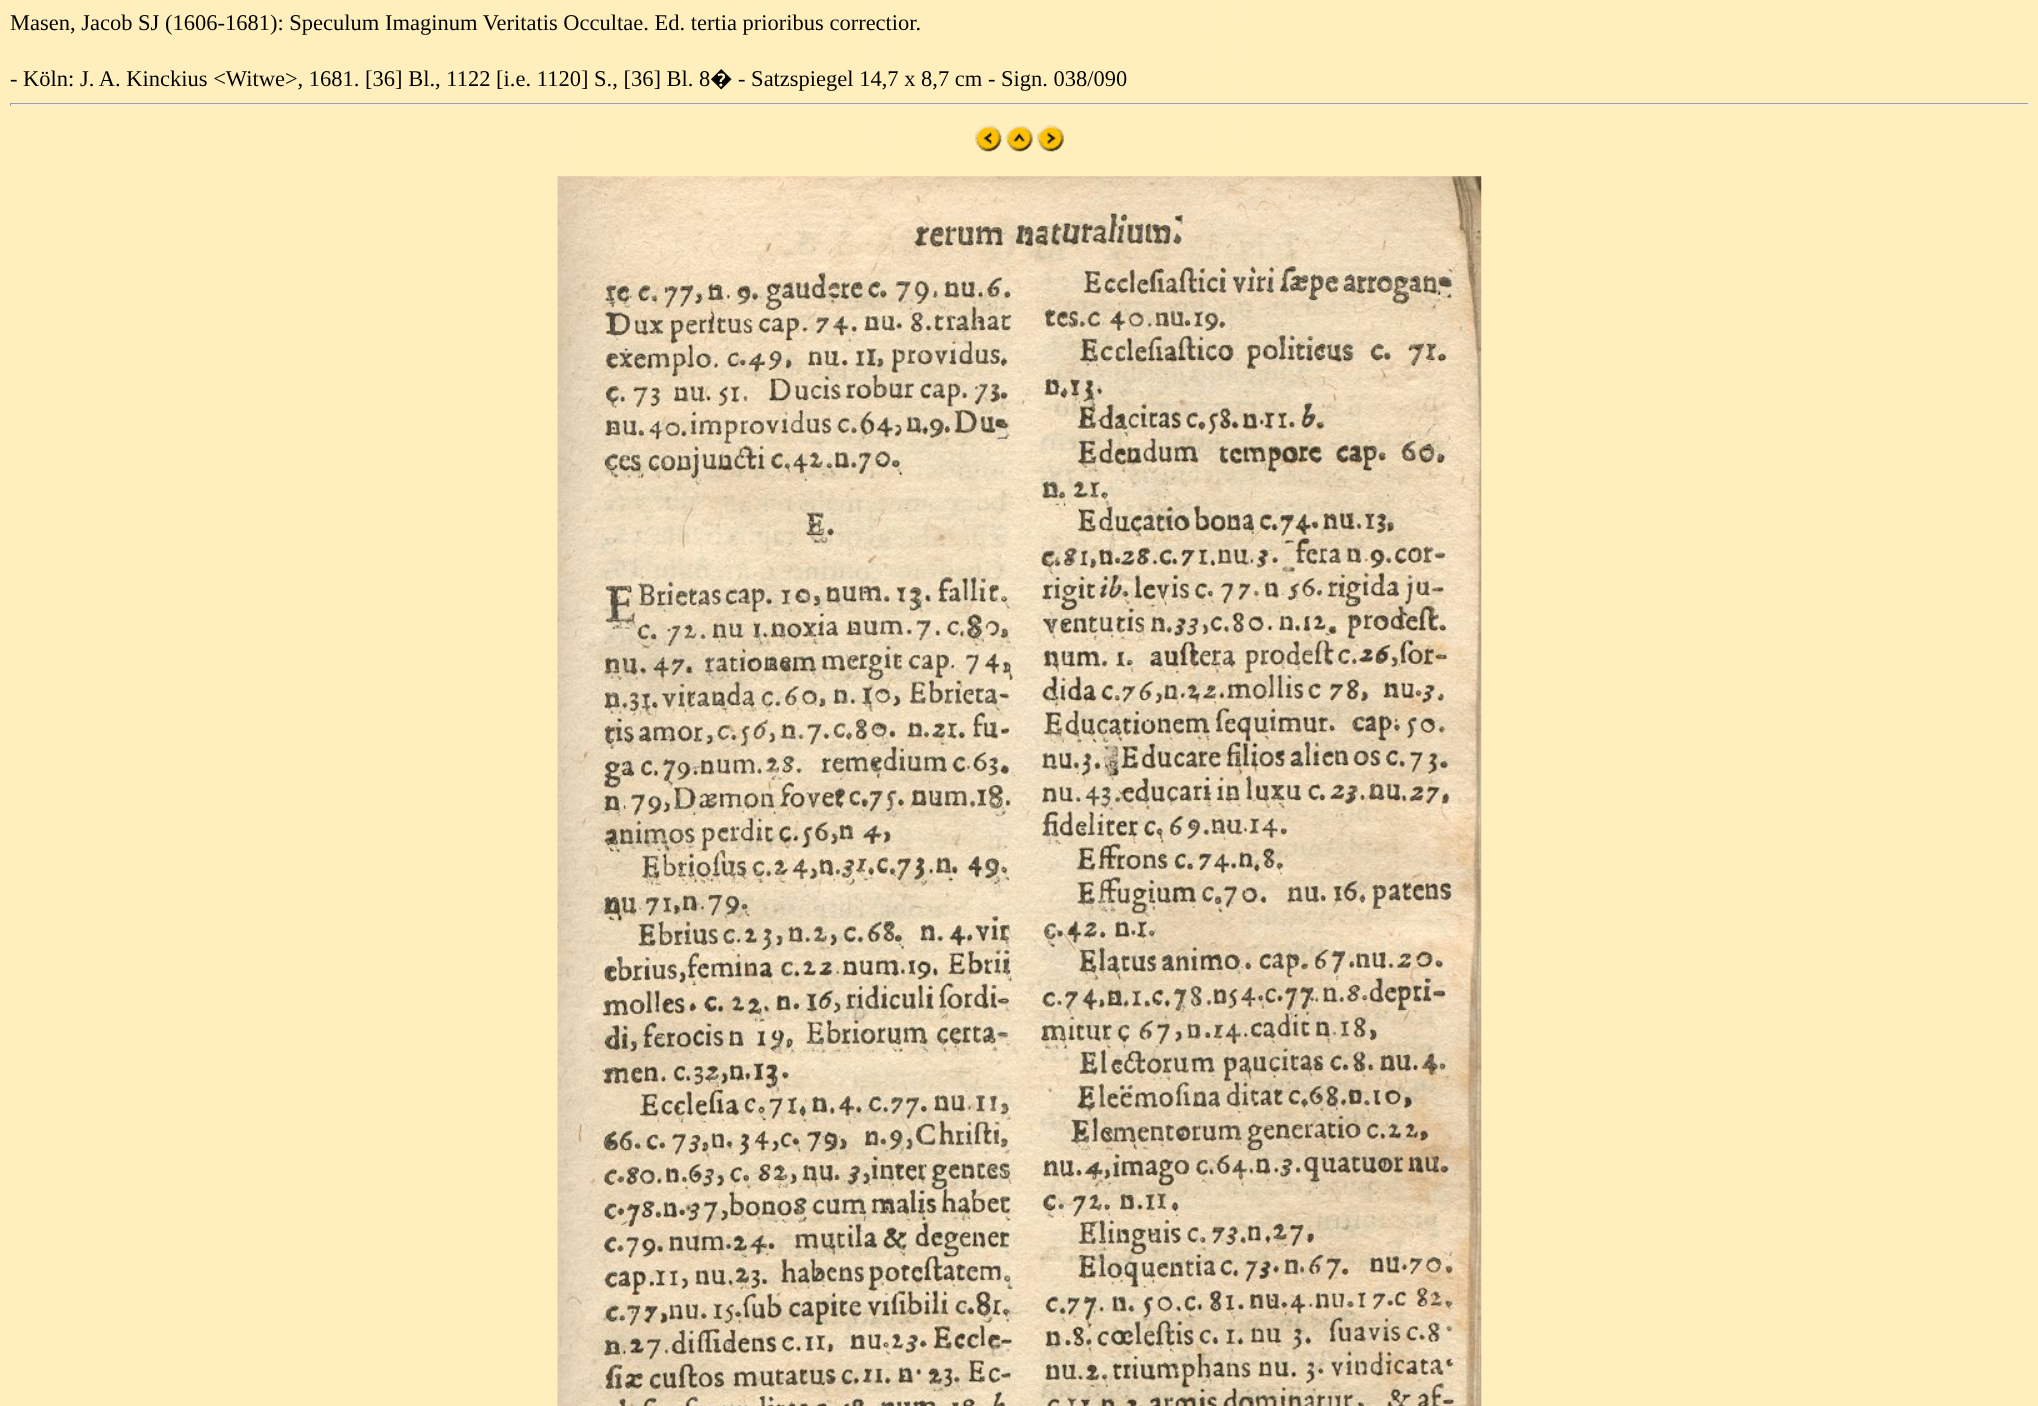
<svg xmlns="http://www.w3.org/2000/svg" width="2038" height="1406">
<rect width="100%" height="100%" fill="#fff"/>
<image x="0" y="0" width="2038" height="1406" href="media/1.png"/>
<text x="10" y="30" style="font-family:Liberation Serif;font-size:22.5px;fill:#000">Masen, Jacob SJ (1606-1681): Speculum Imaginum Veritatis Occultae. Ed. tertia prioribus correctior.</text>
<text x="10" y="86" style="font-family:Liberation Serif;font-size:22.5px;fill:#000">- Köln: J. A. Kinckius &lt;Witwe&gt;, 1681. [36] Bl., 1122 [i.e. 1120] S., [36] Bl. 8</text>
<text x="710" y="86" style="font-family:Noto Sans;font-size:22.5px;fill:#000">�</text>
<text x="738" y="86" style="font-family:Liberation Serif;font-size:22.5px;fill:#000">- Satzspiegel 14,7 x 8,7 cm - Sign. 038/090</text>
<rect x="10" y="103" width="2019" height="1" fill="#9f9f9f"/>
<rect x="2028" y="103" width="1" height="3" fill="#eee"/>
<rect x="10" y="104" width="2019" height="1" fill="#eee"/>
<rect x="10" y="103" width="1" height="3" fill="#9f9f9f"/>
<image x="975" y="125" width="27" height="27" href="media/2.png"/>
<image x="1006" y="125" width="27" height="27" href="media/3.png"/>
<image x="1037" y="125" width="27" height="27" href="media/4.png"/>
<image x="557" y="176" width="925" height="1230" href="media/5.png"/>
</svg>
